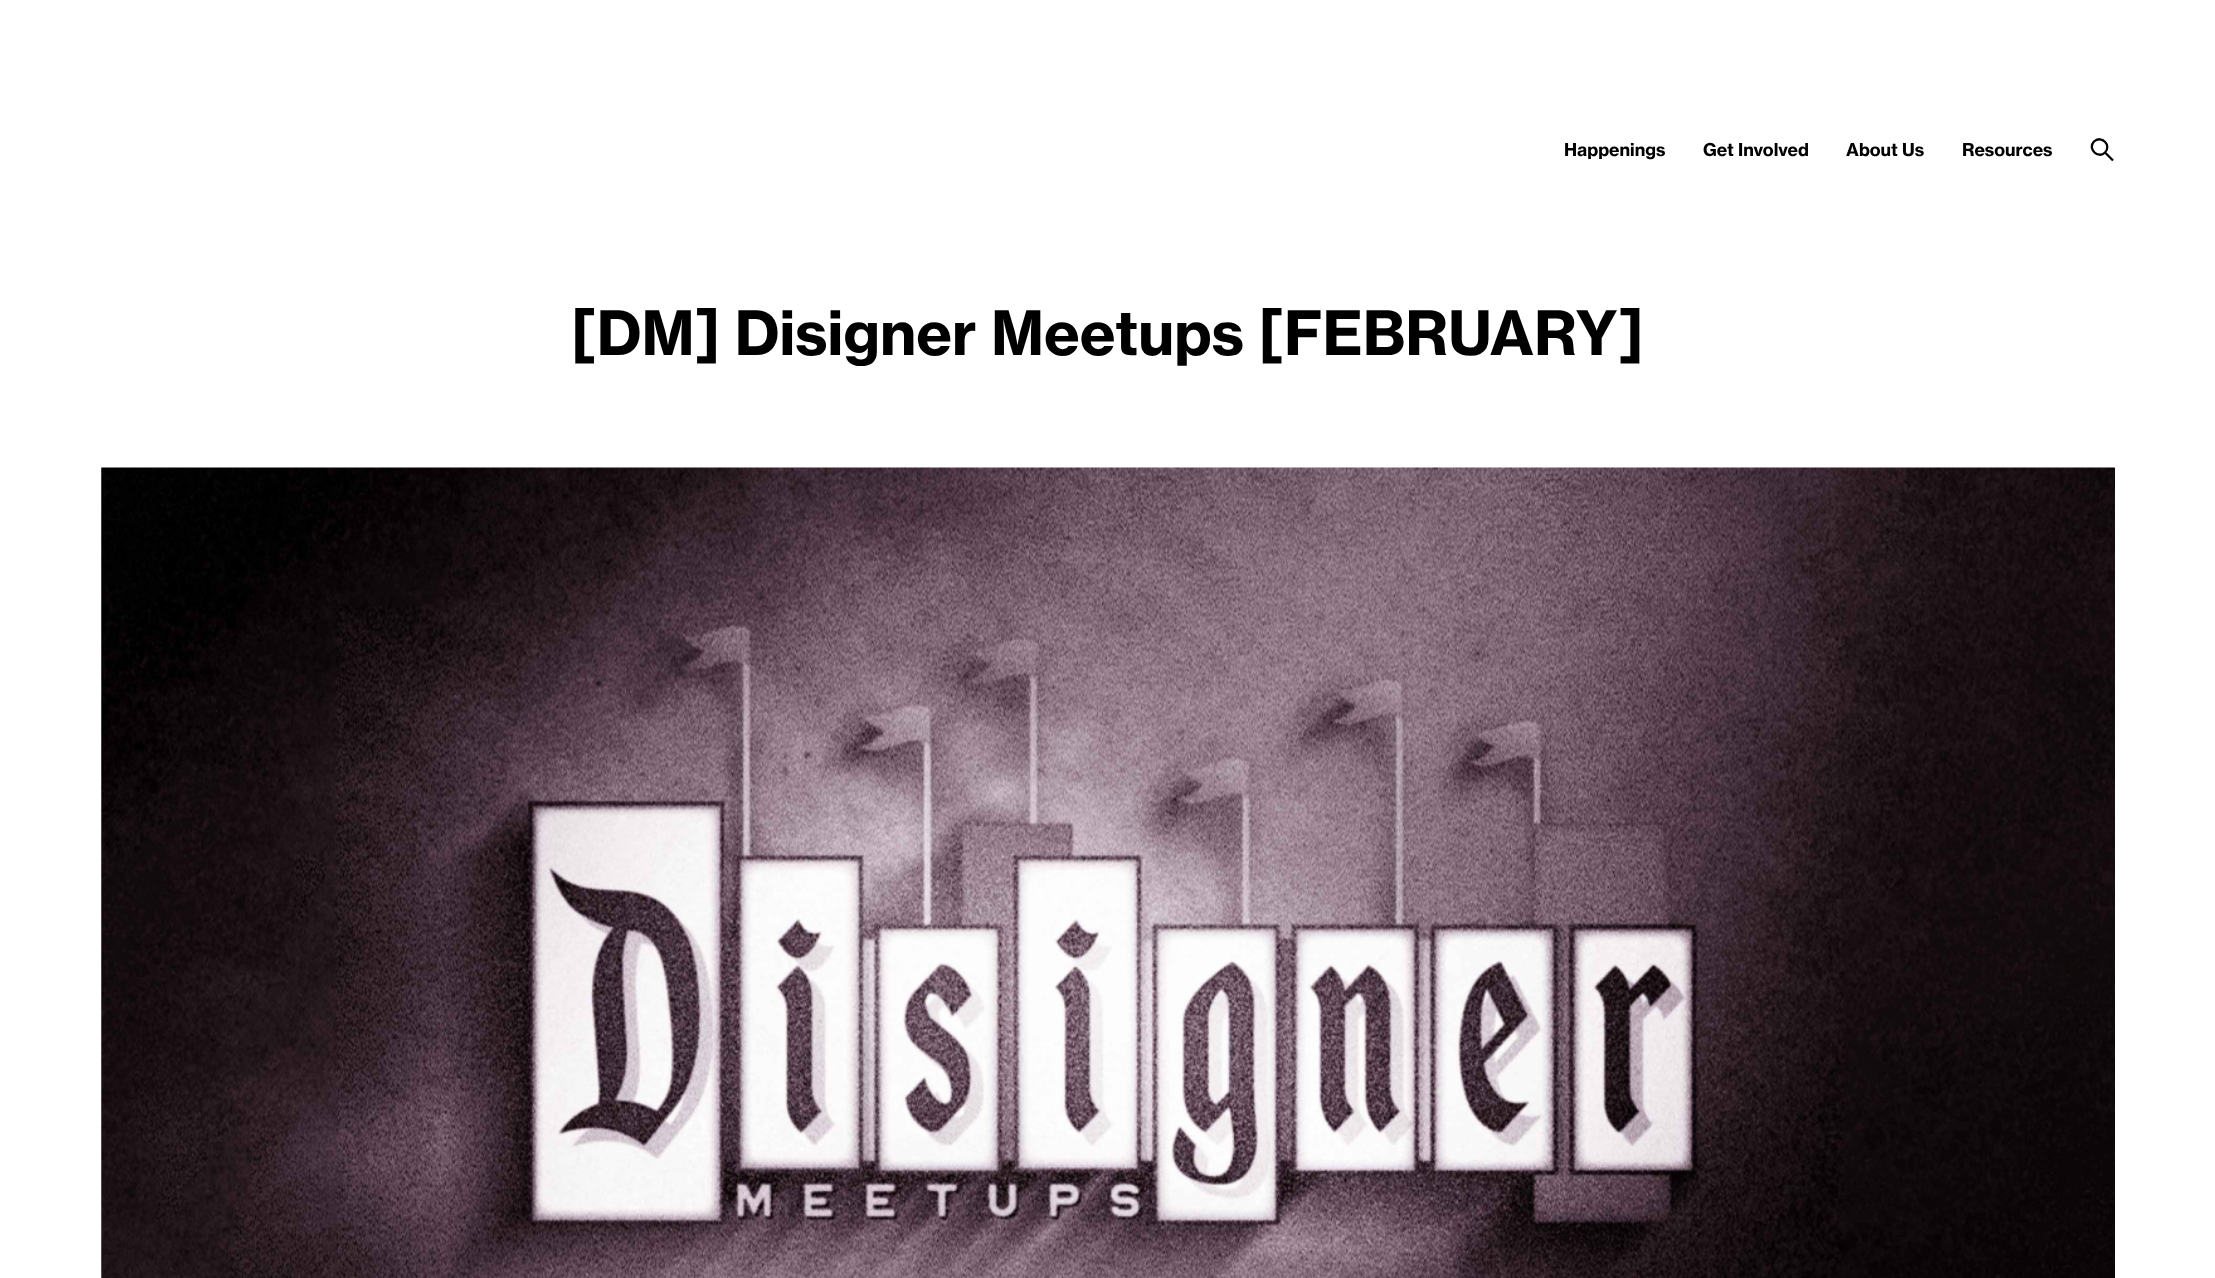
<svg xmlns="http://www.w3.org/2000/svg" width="2215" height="1278">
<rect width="100%" height="100%" fill="#fff"/>
<text x="1564" y="156" style="font-family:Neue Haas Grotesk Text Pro;font-size:17.5px;font-weight:bold;fill:#000">Happenings</text>
<text x="1703" y="156" style="font-family:Neue Haas Grotesk Text Pro;font-size:17.5px;font-weight:bold;fill:#000">Get Involved</text>
<text x="1846" y="156" style="font-family:Neue Haas Grotesk Text Pro;font-size:17.5px;font-weight:bold;fill:#000">About Us</text>
<text x="1962" y="156" style="font-family:Neue Haas Grotesk Text Pro;font-size:17.5px;font-weight:bold;fill:#000">Resources</text>
<path d="M2094 141.5c7.5-7 18 4 11 11c-7 7-18-4-11-11z" fill="none" stroke="#000" stroke-width="2.3" stroke-linecap="round" stroke-linejoin="round"/>
<path d="M2105.5 153l7.5 7.5" fill="none" stroke="#000" stroke-width="2.3" stroke-linejoin="round"/>
<text x="571" y="355" style="font-family:Neue Haas Grotesk Text Pro;font-size:60px;font-weight:bold;fill:#000">[DM] Disigner Meetups [FEBRUARY]</text>
<image x="101" y="467" width="2014" height="811" href="media/1.png"/>
</svg>
